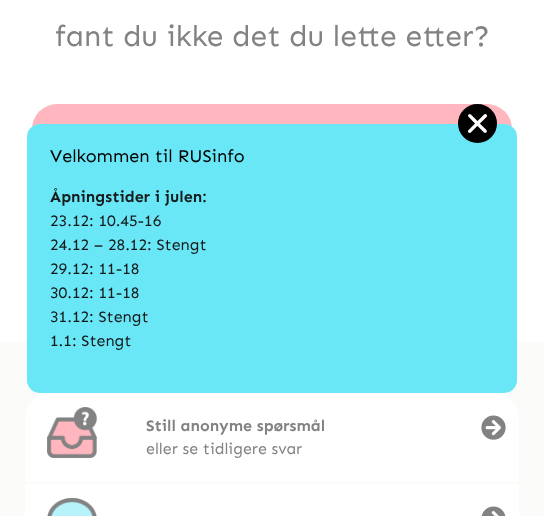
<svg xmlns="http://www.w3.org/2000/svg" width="544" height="516">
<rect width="100%" height="100%" fill="#fff"/>
<text x="55" y="46" style="font-family:Sen;font-size:30px;fill:#828282">fant du ikke det du lette etter?</text>
<rect x="32" y="104" width="480" height="89" rx="25" fill="#ffb6be"/>
<rect y="342" width="544" height="174" fill="#fbfbfa"/>
<rect x="27" y="124" width="490" height="269" rx="13" fill="#6ae7f7"/>
<circle cx="477.5" cy="123.5" r="18" fill="#000" stroke="#000" stroke-width="3"/>
<image x="467" y="114" width="21" height="19" href="media/1.png"/>
<text x="50" y="162" style="font-family:Sen;font-size:18px;fill:#000">Velkommen til RUSinfo</text>
<text x="50" y="202" style="font-family:Sen;font-size:16px;font-weight:bold;fill:#151a1b">Åpningstider i julen:</text>
<text x="50" y="226" style="font-family:Sen;font-size:16px;fill:#151a1b">23.12: 10.45-16</text>
<text x="50" y="250" style="font-family:Sen;font-size:16px;fill:#151a1b">24.12 – 28.12: Stengt</text>
<text x="50" y="274" style="font-family:Sen;font-size:16px;fill:#151a1b">29.12: 11-18</text>
<text x="50" y="298" style="font-family:Sen;font-size:16px;fill:#151a1b">30.12: 11-18</text>
<text x="50" y="322" style="font-family:Sen;font-size:16px;fill:#151a1b">31.12: Stengt</text>
<text x="50" y="346" style="font-family:Sen;font-size:16px;fill:#151a1b">1.1: Stengt</text>
<path d="M50 393h74v89h-99v-64c0-14 11-25 25-25z" fill="#fff"/>
<image x="47" y="407" width="50" height="51" href="media/2.png"/>
<path d="M124 393h370c14 0 25 11 25 25v64h-395z" fill="#fff"/>
<text x="146" y="431" style="font-family:Sen;font-size:16px;font-weight:bold;fill:#828282">Still anonyme spørsmål</text>
<image x="481" y="415" width="25" height="25" href="media/3.png"/>
<text x="146" y="454" style="font-family:Sen;font-size:16px;fill:#828282">eller se tidligere svar</text>
<rect x="25" y="484" width="494" height="32" fill="#fff"/>
<image x="47" y="498" width="50" height="18" href="media/4.png"/>
<image x="481" y="506" width="25" height="10" href="media/5.png"/>
</svg>
